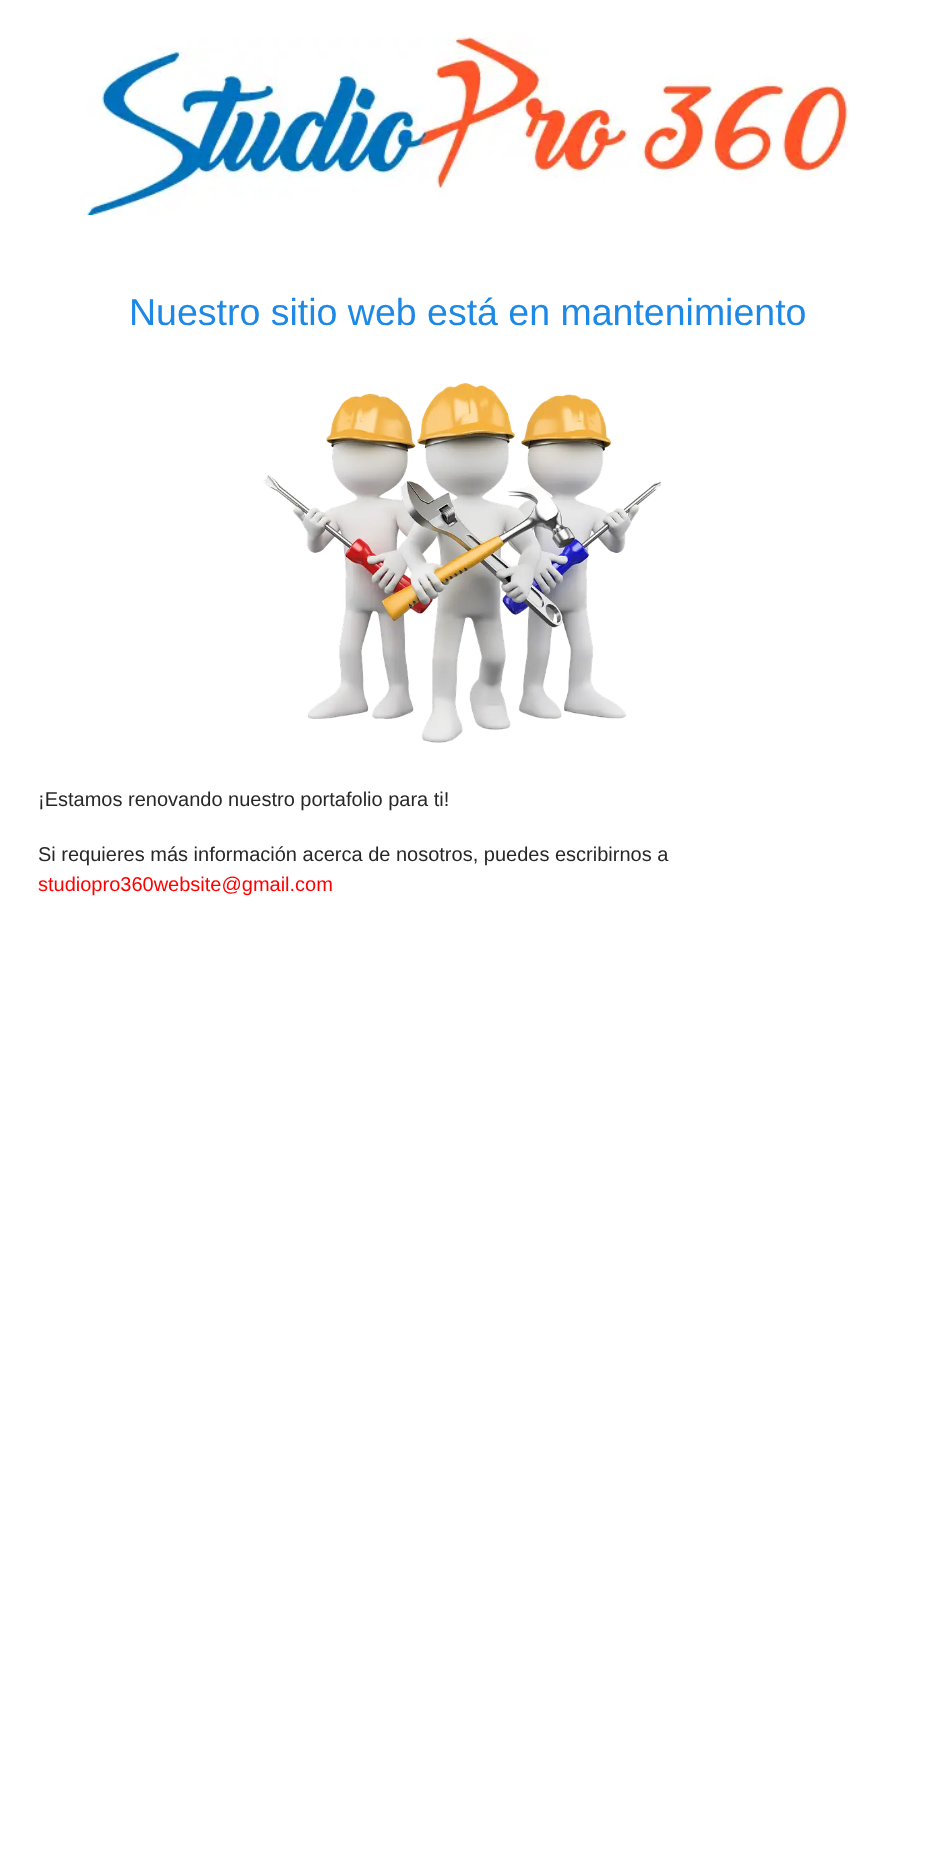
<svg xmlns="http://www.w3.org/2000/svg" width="936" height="1866">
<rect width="100%" height="100%" fill="#fff"/>
<image x="87" y="37" width="762" height="178" href="media/1.png"/>
<text x="129" y="325" style="font-family:Liberation Sans;font-size:37.5px;fill:#1e88e5">Nuestro sitio web está en mantenimiento</text>
<image x="263" y="383" width="398" height="360" href="media/2.png"/>
<text x="38" y="806" style="font-family:Liberation Sans;font-size:20px;fill:#272727">¡Estamos renovando nuestro portafolio para ti!</text>
<text x="38" y="861" style="font-family:Liberation Sans;font-size:20px;fill:#272727">Si requieres más información acerca de nosotros, puedes escribirnos a</text>
<text x="38" y="891" style="font-family:Liberation Sans;font-size:20px;fill:#f00">studiopro360website@gmail.com</text>
</svg>
